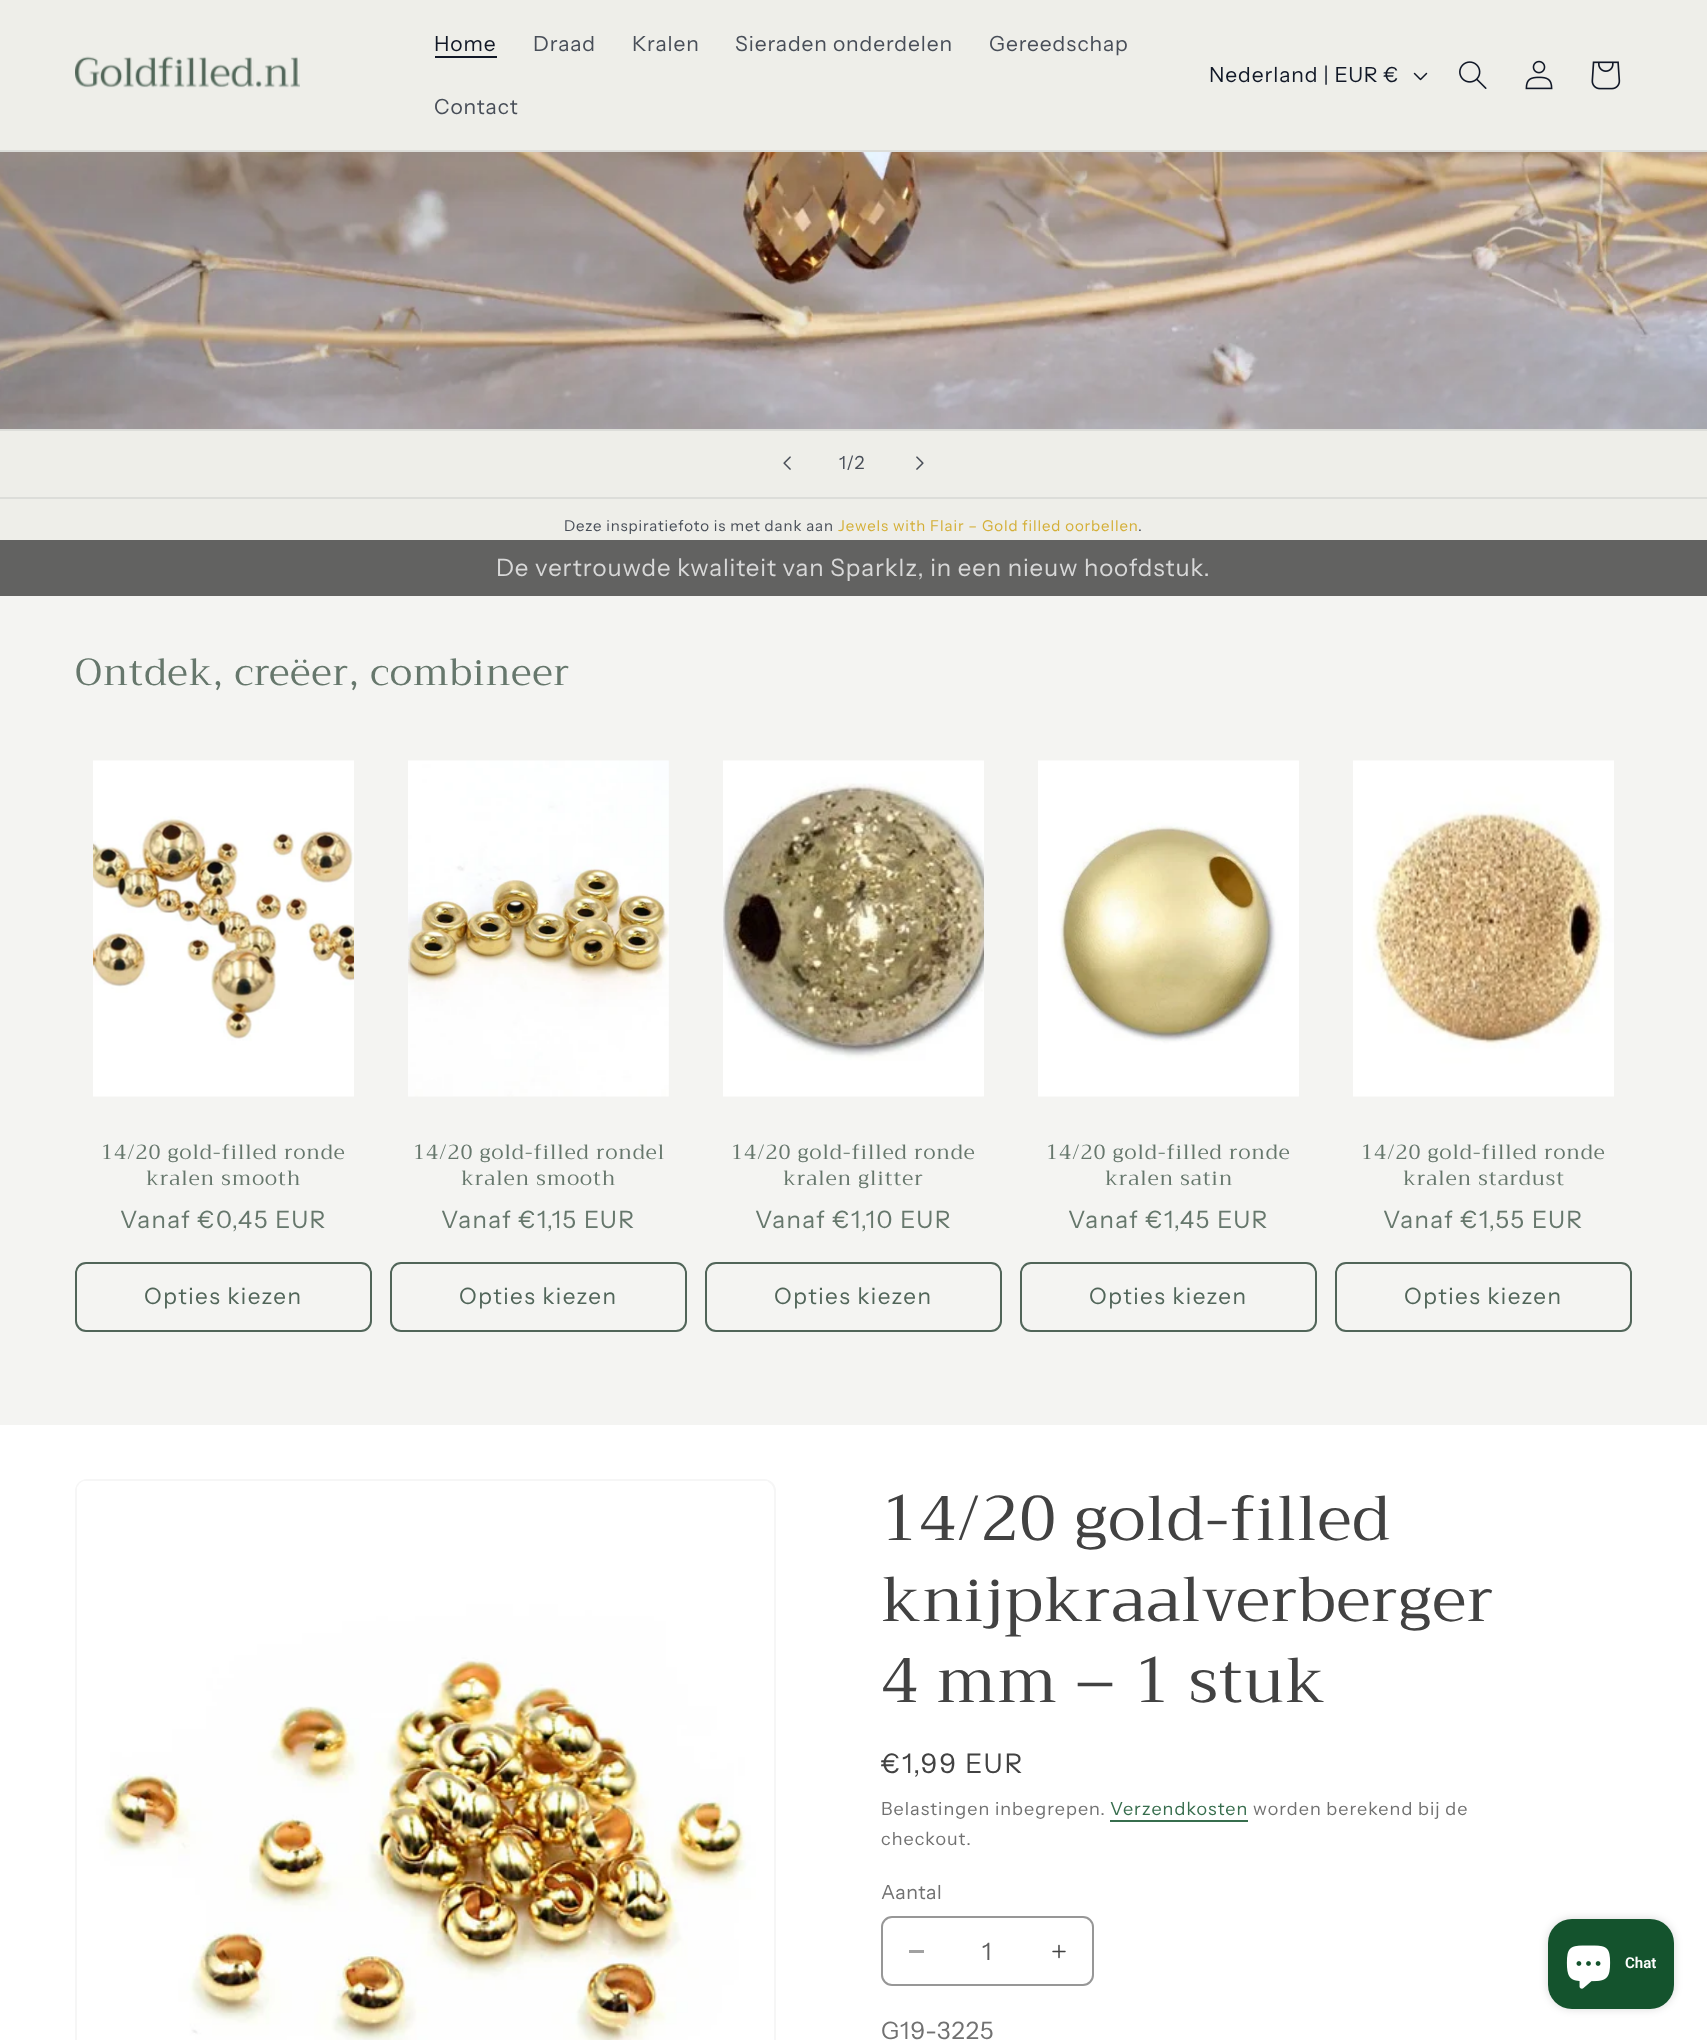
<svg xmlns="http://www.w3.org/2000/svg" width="1707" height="2040">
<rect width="100%" height="100%" fill="#eeeee9"/>
<rect y="150" width="1707" height="2" fill="#dcddd9"/>
<image x="75" y="56" width="225" height="32" href="media/1.png"/>
<text x="434" y="51" style="font-family:Instrument Sans;font-size:21px;letter-spacing:0.9px;fill:#111827">Home</text>
<rect x="435" y="56" width="62" height="2" fill="#111827"/>
<text x="533" y="51" style="font-family:Instrument Sans;font-size:21px;letter-spacing:0.9px;fill:#484e58">Draad</text>
<text x="632" y="51" style="font-family:Instrument Sans;font-size:21px;letter-spacing:0.9px;fill:#484e58">Kralen</text>
<text x="735" y="51" style="font-family:Instrument Sans;font-size:21px;letter-spacing:0.9px;fill:#484e58">Sieraden onderdelen</text>
<text x="989" y="51" style="font-family:Instrument Sans;font-size:21px;letter-spacing:0.9px;fill:#484e58">Gereedschap</text>
<text x="434" y="114" style="font-family:Instrument Sans;font-size:21px;letter-spacing:0.9px;fill:#484e58">Contact</text>
<text x="1209" y="82" style="font-family:Instrument Sans;font-size:21px;letter-spacing:0.9px;fill:#111827">Nederland | EUR €</text>
<image x="1413" y="72" width="15" height="9" href="media/2.png"/>
<image x="1459" y="61" width="28" height="28" href="media/3.png"/>
<image x="1525" y="60" width="28" height="30" href="media/4.png"/>
<image x="1591" y="61" width="30" height="29" href="media/5.png"/>
<image x="0" y="152" width="1707" height="277" href="media/6.png"/>
<rect y="429" width="1707" height="2" fill="#dcddd9"/>
<rect y="497" width="1707" height="2" fill="#dcddd9"/>
<image x="783" y="456" width="8" height="14" href="media/7.png"/>
<text x="839" y="469" style="font-family:Instrument Sans;font-size:18px;letter-spacing:1.05px;fill:#484e58">1/2</text>
<image x="916" y="456" width="8" height="14" href="media/8.png"/>
<text x="564" y="531" style="font-family:Instrument Sans;font-size:15px;letter-spacing:0.9px;fill:#484e58">Deze inspiratiefoto is met dank aan</text>
<text x="838" y="531" style="font-family:Instrument Sans;font-size:15px;letter-spacing:0.9px;fill:#d4af37">Jewels with Flair – Gold filled oorbellen</text>
<text x="1138" y="531" style="font-family:Instrument Sans;font-size:15px;letter-spacing:0.9px;fill:#484e58">.</text>
<rect y="540" width="1707" height="56" fill="#626261"/>
<text x="496" y="576" style="font-family:Instrument Sans;font-size:24px;letter-spacing:0.9px;fill:#d8d8d8">De vertrouwde kwaliteit van Sparklz, in een nieuw hoofdstuk.</text>
<rect y="596" width="1707" height="829" fill="#f4f4f2"/>
<text x="75" y="685" style="font-family:Trirong;font-size:37.75px;letter-spacing:0.95px;fill:#66776c">Ontdek, creëer, combineer</text>
<image x="93" y="760" width="261" height="337" href="media/9.png"/>
<text x="101" y="1159" style="font-family:Trirong;font-size:20.5px;letter-spacing:0.95px;fill:#66776c">14/20 gold-filled ronde</text>
<text x="146" y="1185" style="font-family:Trirong;font-size:20.5px;letter-spacing:0.95px;fill:#66776c">kralen smooth</text>
<text x="120" y="1228" style="font-family:Instrument Sans;font-size:24px;letter-spacing:1.5px;fill:#66776c">Vanaf €0,45 EUR</text>
<rect x="76" y="1263" width="295" height="68" rx="10" fill="none" stroke="#516559" stroke-width="2"/>
<text x="144" y="1304" style="font-family:Instrument Sans;font-size:22.5px;letter-spacing:1.5px;fill:#516559">Opties kiezen</text>
<image x="408" y="760" width="261" height="337" href="media/10.png"/>
<text x="413" y="1159" style="font-family:Trirong;font-size:20.5px;letter-spacing:0.95px;fill:#66776c">14/20 gold-filled rondel</text>
<text x="461" y="1185" style="font-family:Trirong;font-size:20.5px;letter-spacing:0.95px;fill:#66776c">kralen smooth</text>
<text x="441" y="1228" style="font-family:Instrument Sans;font-size:24px;letter-spacing:1.5px;fill:#66776c">Vanaf €1,15 EUR</text>
<rect x="391" y="1263" width="295" height="68" rx="10" fill="none" stroke="#516559" stroke-width="2"/>
<text x="459" y="1304" style="font-family:Instrument Sans;font-size:22.5px;letter-spacing:1.5px;fill:#516559">Opties kiezen</text>
<image x="723" y="760" width="261" height="337" href="media/11.png"/>
<text x="731" y="1159" style="font-family:Trirong;font-size:20.5px;letter-spacing:0.95px;fill:#66776c">14/20 gold-filled ronde</text>
<text x="783" y="1185" style="font-family:Trirong;font-size:20.5px;letter-spacing:0.95px;fill:#66776c">kralen glitter</text>
<text x="755" y="1228" style="font-family:Instrument Sans;font-size:24px;letter-spacing:1.5px;fill:#66776c">Vanaf €1,10 EUR</text>
<rect x="706" y="1263" width="295" height="68" rx="10" fill="none" stroke="#516559" stroke-width="2"/>
<text x="774" y="1304" style="font-family:Instrument Sans;font-size:22.5px;letter-spacing:1.5px;fill:#516559">Opties kiezen</text>
<image x="1038" y="760" width="261" height="337" href="media/12.png"/>
<text x="1046" y="1159" style="font-family:Trirong;font-size:20.5px;letter-spacing:0.95px;fill:#66776c">14/20 gold-filled ronde</text>
<text x="1105" y="1185" style="font-family:Trirong;font-size:20.5px;letter-spacing:0.95px;fill:#66776c">kralen satin</text>
<text x="1068" y="1228" style="font-family:Instrument Sans;font-size:24px;letter-spacing:1.5px;fill:#66776c">Vanaf €1,45 EUR</text>
<rect x="1021" y="1263" width="295" height="68" rx="10" fill="none" stroke="#516559" stroke-width="2"/>
<text x="1089" y="1304" style="font-family:Instrument Sans;font-size:22.5px;letter-spacing:1.5px;fill:#516559">Opties kiezen</text>
<image x="1353" y="760" width="261" height="337" href="media/13.png"/>
<text x="1361" y="1159" style="font-family:Trirong;font-size:20.5px;letter-spacing:0.95px;fill:#66776c">14/20 gold-filled ronde</text>
<text x="1403" y="1185" style="font-family:Trirong;font-size:20.5px;letter-spacing:0.95px;fill:#66776c">kralen stardust</text>
<text x="1383" y="1228" style="font-family:Instrument Sans;font-size:24px;letter-spacing:1.5px;fill:#66776c">Vanaf €1,55 EUR</text>
<rect x="1336" y="1263" width="295" height="68" rx="10" fill="none" stroke="#516559" stroke-width="2"/>
<text x="1404" y="1304" style="font-family:Instrument Sans;font-size:22.5px;letter-spacing:1.5px;fill:#516559">Opties kiezen</text>
<rect y="1425" width="1707" height="615" fill="#fff"/>
<rect x="76" y="1480" width="699" height="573" rx="11" fill="none" stroke="#f6f6f6" stroke-width="2"/>
<image x="77" y="1481" width="691" height="559" href="media/14.png"/>
<text x="881" y="1540" style="font-family:Trirong;font-size:63px;letter-spacing:0.95px;fill:#424242">14/20 gold-filled</text>
<text x="881" y="1621" style="font-family:Trirong;font-size:63px;letter-spacing:0.95px;fill:#424242">knijpkraalverberger</text>
<text x="881" y="1702" style="font-family:Trirong;font-size:63px;letter-spacing:0.95px;fill:#424242">4 mm – 1 stuk</text>
<text x="881" y="1773" style="font-family:Instrument Sans;font-size:27px;letter-spacing:2px;fill:#424242">€1,99 EUR</text>
<text x="881" y="1815" style="font-family:Instrument Sans;font-size:18px;letter-spacing:1.05px;fill:#717171">Belastingen inbegrepen.</text>
<text x="1110" y="1815" style="font-family:Instrument Sans;font-size:18px;letter-spacing:1.05px;fill:#376d4d">Verzendkosten</text>
<rect x="1110" y="1820" width="138" height="2" fill="#376d4d"/>
<text x="1253" y="1815" style="font-family:Instrument Sans;font-size:18px;letter-spacing:1.05px;fill:#717171">worden berekend bij de</text>
<text x="881" y="1845" style="font-family:Instrument Sans;font-size:18px;letter-spacing:1.05px;fill:#717171">checkout.</text>
<text x="881" y="1899" style="font-family:Instrument Sans;font-size:19.5px;letter-spacing:0.5px;fill:#717171">Aantal</text>
<rect x="909" y="1950" width="15" height="3" fill="#a1a1a1"/>
<image x="1052" y="1944" width="14" height="15" href="media/15.png"/>
<rect x="882" y="1917" width="211" height="68" rx="10" fill="none" stroke="#979797" stroke-width="2"/>
<text x="982" y="1960" style="font-family:Instrument Sans;font-size:24px;fill:#5e5e5e">1</text>
<text x="881" y="2039" style="font-family:Instrument Sans;font-size:24px;letter-spacing:0.9px;fill:#717171">G19-3225</text>
<rect x="1548" y="1919" width="126" height="90" rx="24" fill="#00000026" filter="blur(4px)"/>
<rect x="1548" y="1919" width="126" height="90" rx="24" fill="#14532d"/>
<image x="1566" y="1945" width="45" height="44" href="media/16.png"/>
<text x="1625" y="1968" style="font-family:Roboto;font-size:15px;font-weight:600;fill:#fff">Chat</text>
</svg>
